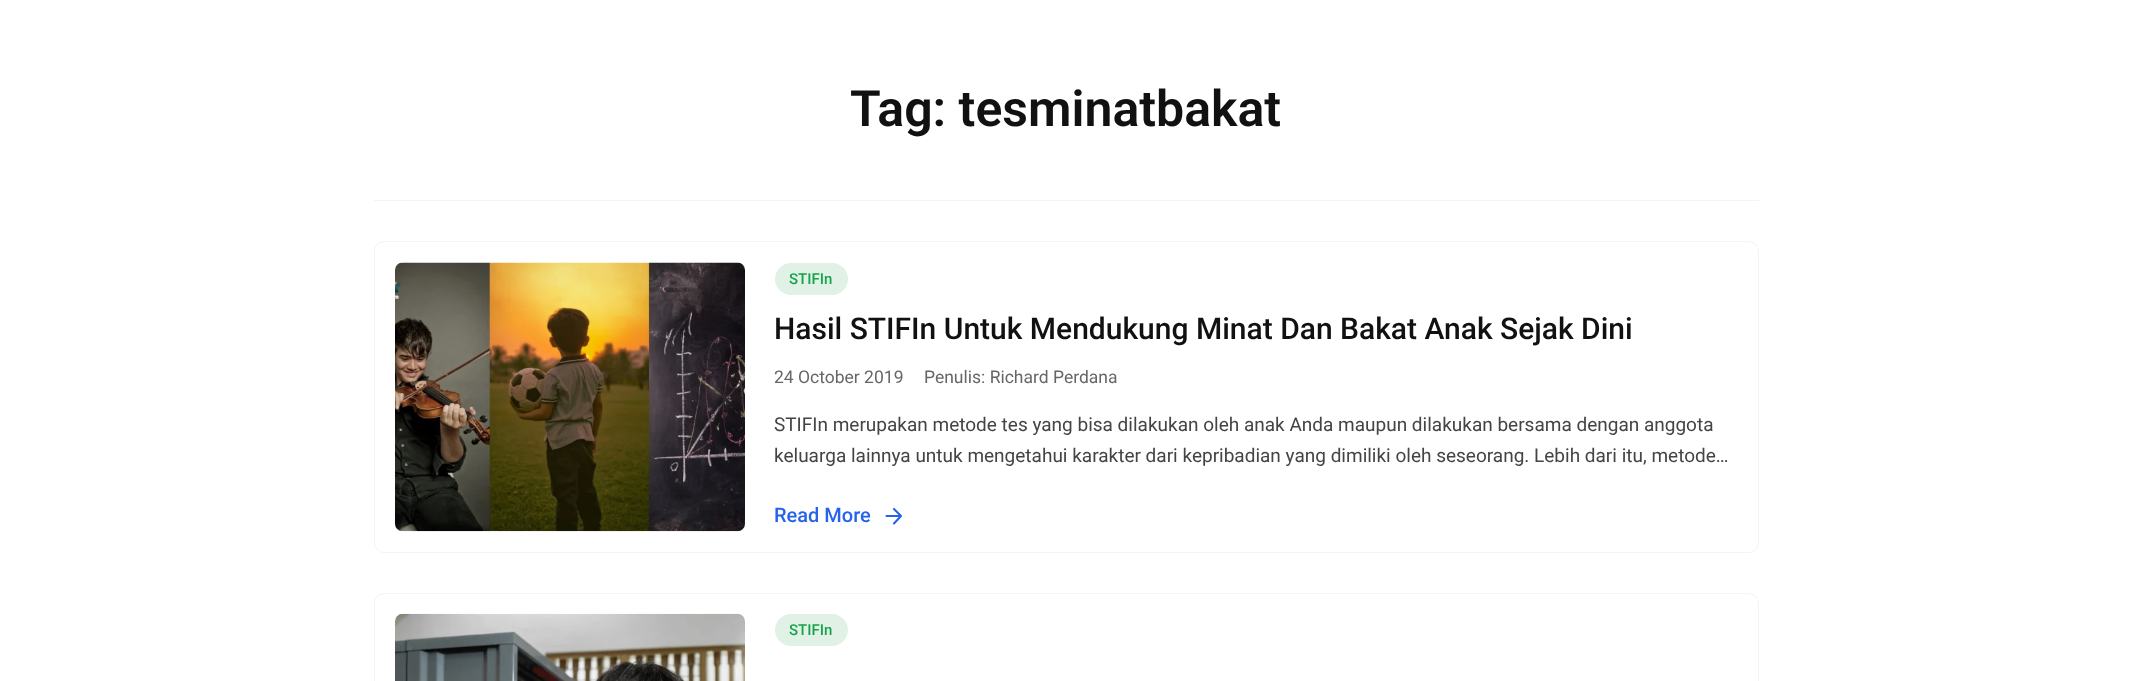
<svg xmlns="http://www.w3.org/2000/svg" width="2131" height="681">
<rect width="100%" height="100%" fill="#fff"/>
<text x="850" y="126" style="font-family:Roboto;font-size:50px;font-weight:600;fill:#111">Tag: tesminatbakat</text>
<rect x="374" y="200" width="1385" height="1" fill="#f3f4f6"/>
<rect x="374.5" y="241.5" width="1384" height="311" rx="9.5" fill="none" stroke="#f3f4f6"/>
<image x="395" y="262" width="350" height="270" href="media/1.png"/>
<rect x="775" y="263" width="73" height="32" rx="16" fill="#e2f1e6"/>
<text x="789" y="284" style="font-family:Roboto;font-size:15px;font-weight:500;fill:#16a34a">STIFIn</text>
<text x="774" y="339" style="font-family:Roboto;font-size:30px;font-weight:500;fill:#111">Hasil STIFIn Untuk Mendukung Minat Dan Bakat Anak Sejak Dini</text>
<text x="774" y="383" style="font-family:Roboto;font-size:17.5px;fill:#666">24 October 2019</text>
<text x="924" y="383" style="font-family:Roboto;font-size:17.5px;fill:#666">Penulis: Richard Perdana</text>
<text x="774" y="431" style="font-family:Roboto;font-size:19px;fill:#444">STIFIn merupakan metode tes yang bisa dilakukan oleh anak Anda maupun dilakukan bersama dengan anggota</text>
<text x="774" y="462" style="font-family:Roboto;font-size:19px;fill:#444">keluarga lainnya untuk mengetahui karakter dari kepribadian yang dimiliki oleh seseorang. Lebih dari itu, metode…</text>
<text x="774" y="522" style="font-family:Roboto;font-size:20px;font-weight:500;fill:#2563eb">Read More</text>
<path d="M886.5 516h14.5m-7-7l7 7l-7 7.5" fill="none" stroke="#2563eb" stroke-width="2.1" stroke-linecap="round" stroke-linejoin="round"/>
<rect x="374.5" y="593.5" width="1384" height="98" rx="9.5" fill="none" stroke="#f3f4f6"/>
<image x="395" y="613" width="350" height="68" href="media/2.png"/>
<rect x="775" y="614" width="73" height="32" rx="16" fill="#e2f1e6"/>
<text x="789" y="635" style="font-family:Roboto;font-size:15px;font-weight:500;fill:#16a34a">STIFIn</text>
</svg>
